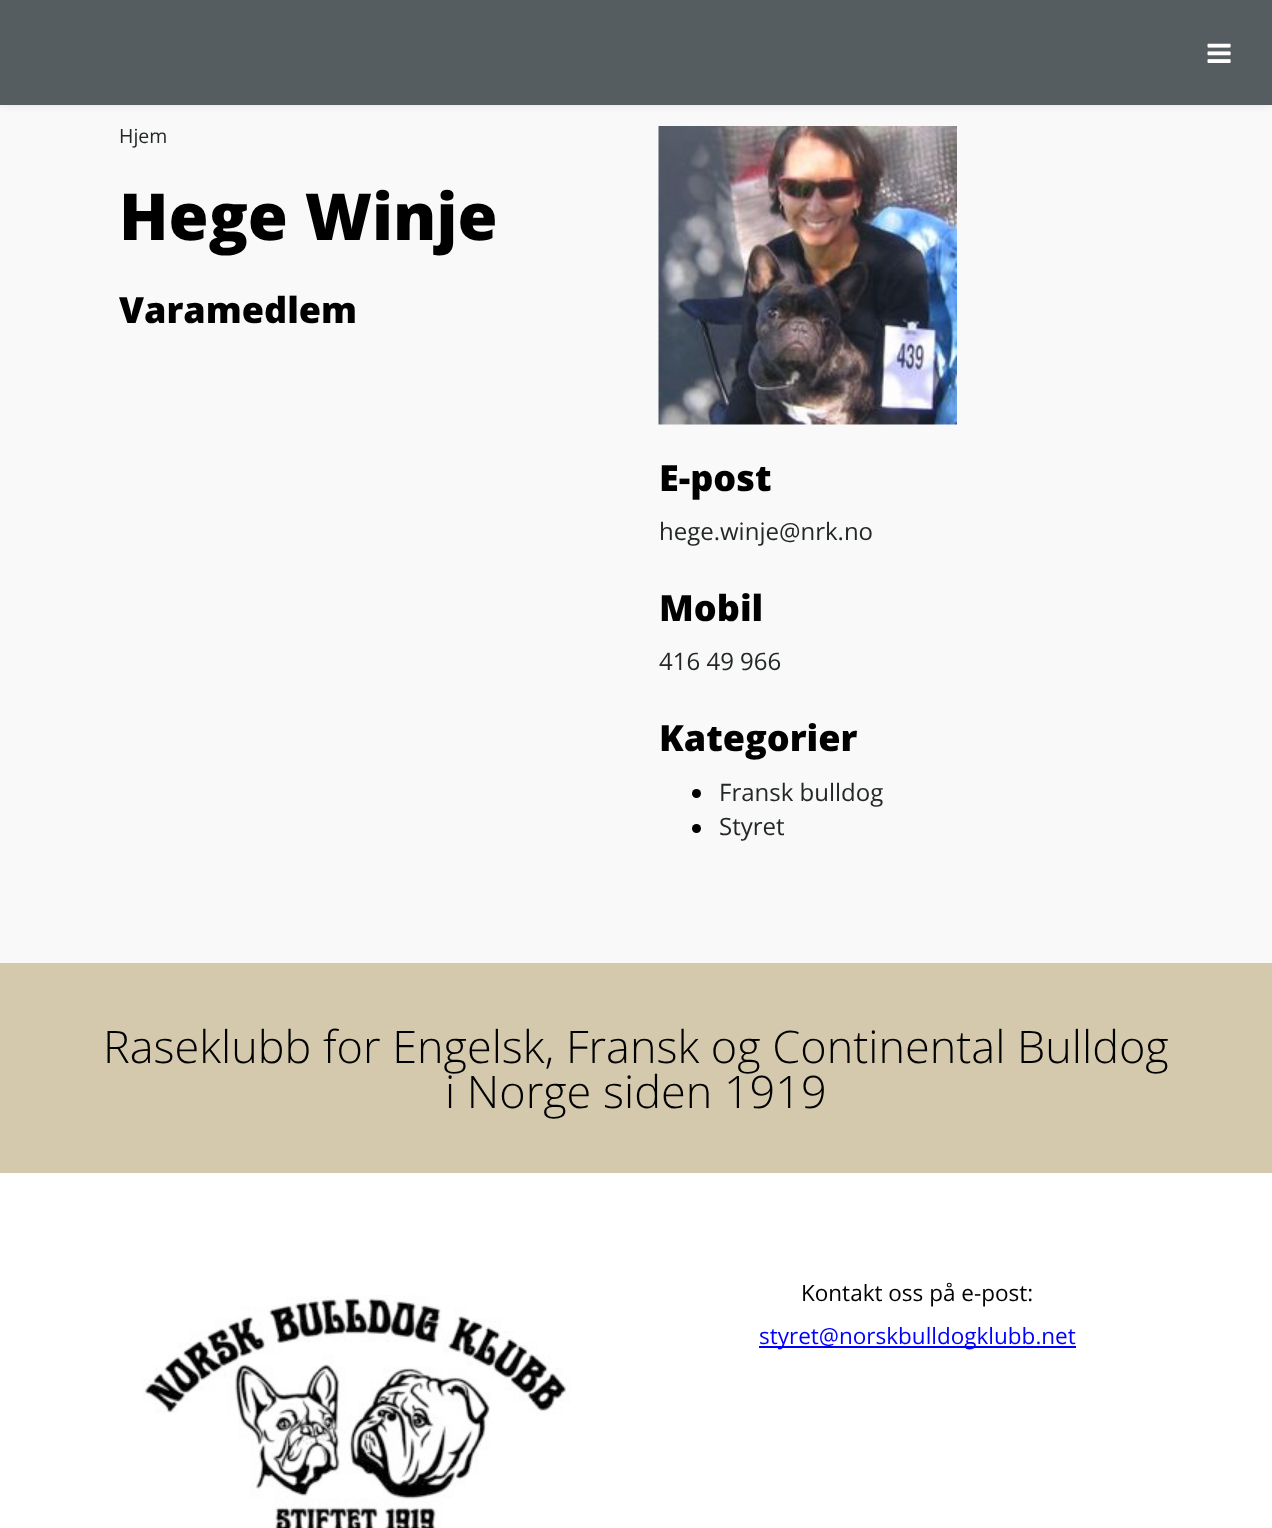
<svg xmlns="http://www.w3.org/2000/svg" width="1272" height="1528">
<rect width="100%" height="100%" fill="#fff"/>
<rect y="105" width="1272" height="858" fill="#f9f9f9"/>
<rect width="1272" height="105" fill="#0000001a" filter="blur(4px)"/>
<rect width="1272" height="105" fill="#565d60"/>
<image x="1207" y="43" width="24" height="20" href="media/1.png"/>
<text x="119" y="143" style="font-family:Open Sans;font-size:19.5px;fill:#242728">Hjem</text>
<text x="119" y="240" style="font-family:Open Sans;font-size:64.75px;font-weight:800;fill:#000">Hege Winje</text>
<text x="119" y="323" style="font-family:Open Sans;font-size:36px;font-weight:800;fill:#000">Varamedlem</text>
<image x="658" y="126" width="299" height="299" href="media/2.png"/>
<text x="659" y="491" style="font-family:Open Sans;font-size:36px;font-weight:800;fill:#000">E-post</text>
<text x="659" y="540" style="font-family:Open Sans;font-size:24px;fill:#242728">hege.winje@nrk.no</text>
<text x="659" y="621" style="font-family:Open Sans;font-size:36px;font-weight:800;fill:#000">Mobil</text>
<text x="659" y="670" style="font-family:Open Sans;font-size:24px;fill:#242728">416 49 966</text>
<text x="659" y="751" style="font-family:Open Sans;font-size:36px;font-weight:800;fill:#000">Kategorier</text>
<circle cx="696.5" cy="793.5" r="4.5" fill="#000"/>
<text x="719" y="801" style="font-family:Open Sans;font-size:24px;fill:#242728">Fransk bulldog</text>
<circle cx="696.5" cy="828.5" r="4.5" fill="#000"/>
<text x="719" y="835" style="font-family:Open Sans;font-size:24px;fill:#242728">Styret</text>
<rect y="963" width="1272" height="210" fill="#d4c9ad"/>
<text x="103" y="1063" style="font-family:Open Sans;font-size:45px;font-weight:300;fill:#000">Raseklubb for Engelsk, Fransk og Continental Bulldog</text>
<text x="445" y="1108" style="font-family:Open Sans;font-size:45px;font-weight:300;fill:#000">i Norge siden 1919</text>
<image x="143" y="1295" width="428" height="233" href="media/3.png"/>
<text x="801" y="1301" style="font-family:Open Sans;font-size:22.5px;fill:#000">Kontakt oss på e-post:</text>
<rect x="759" y="1346" width="317" height="2" fill="#00f"/>
<text x="759" y="1344" style="font-family:Open Sans;font-size:22.5px;fill:#00f">styret@norskbulldogklubb.net</text>
</svg>
